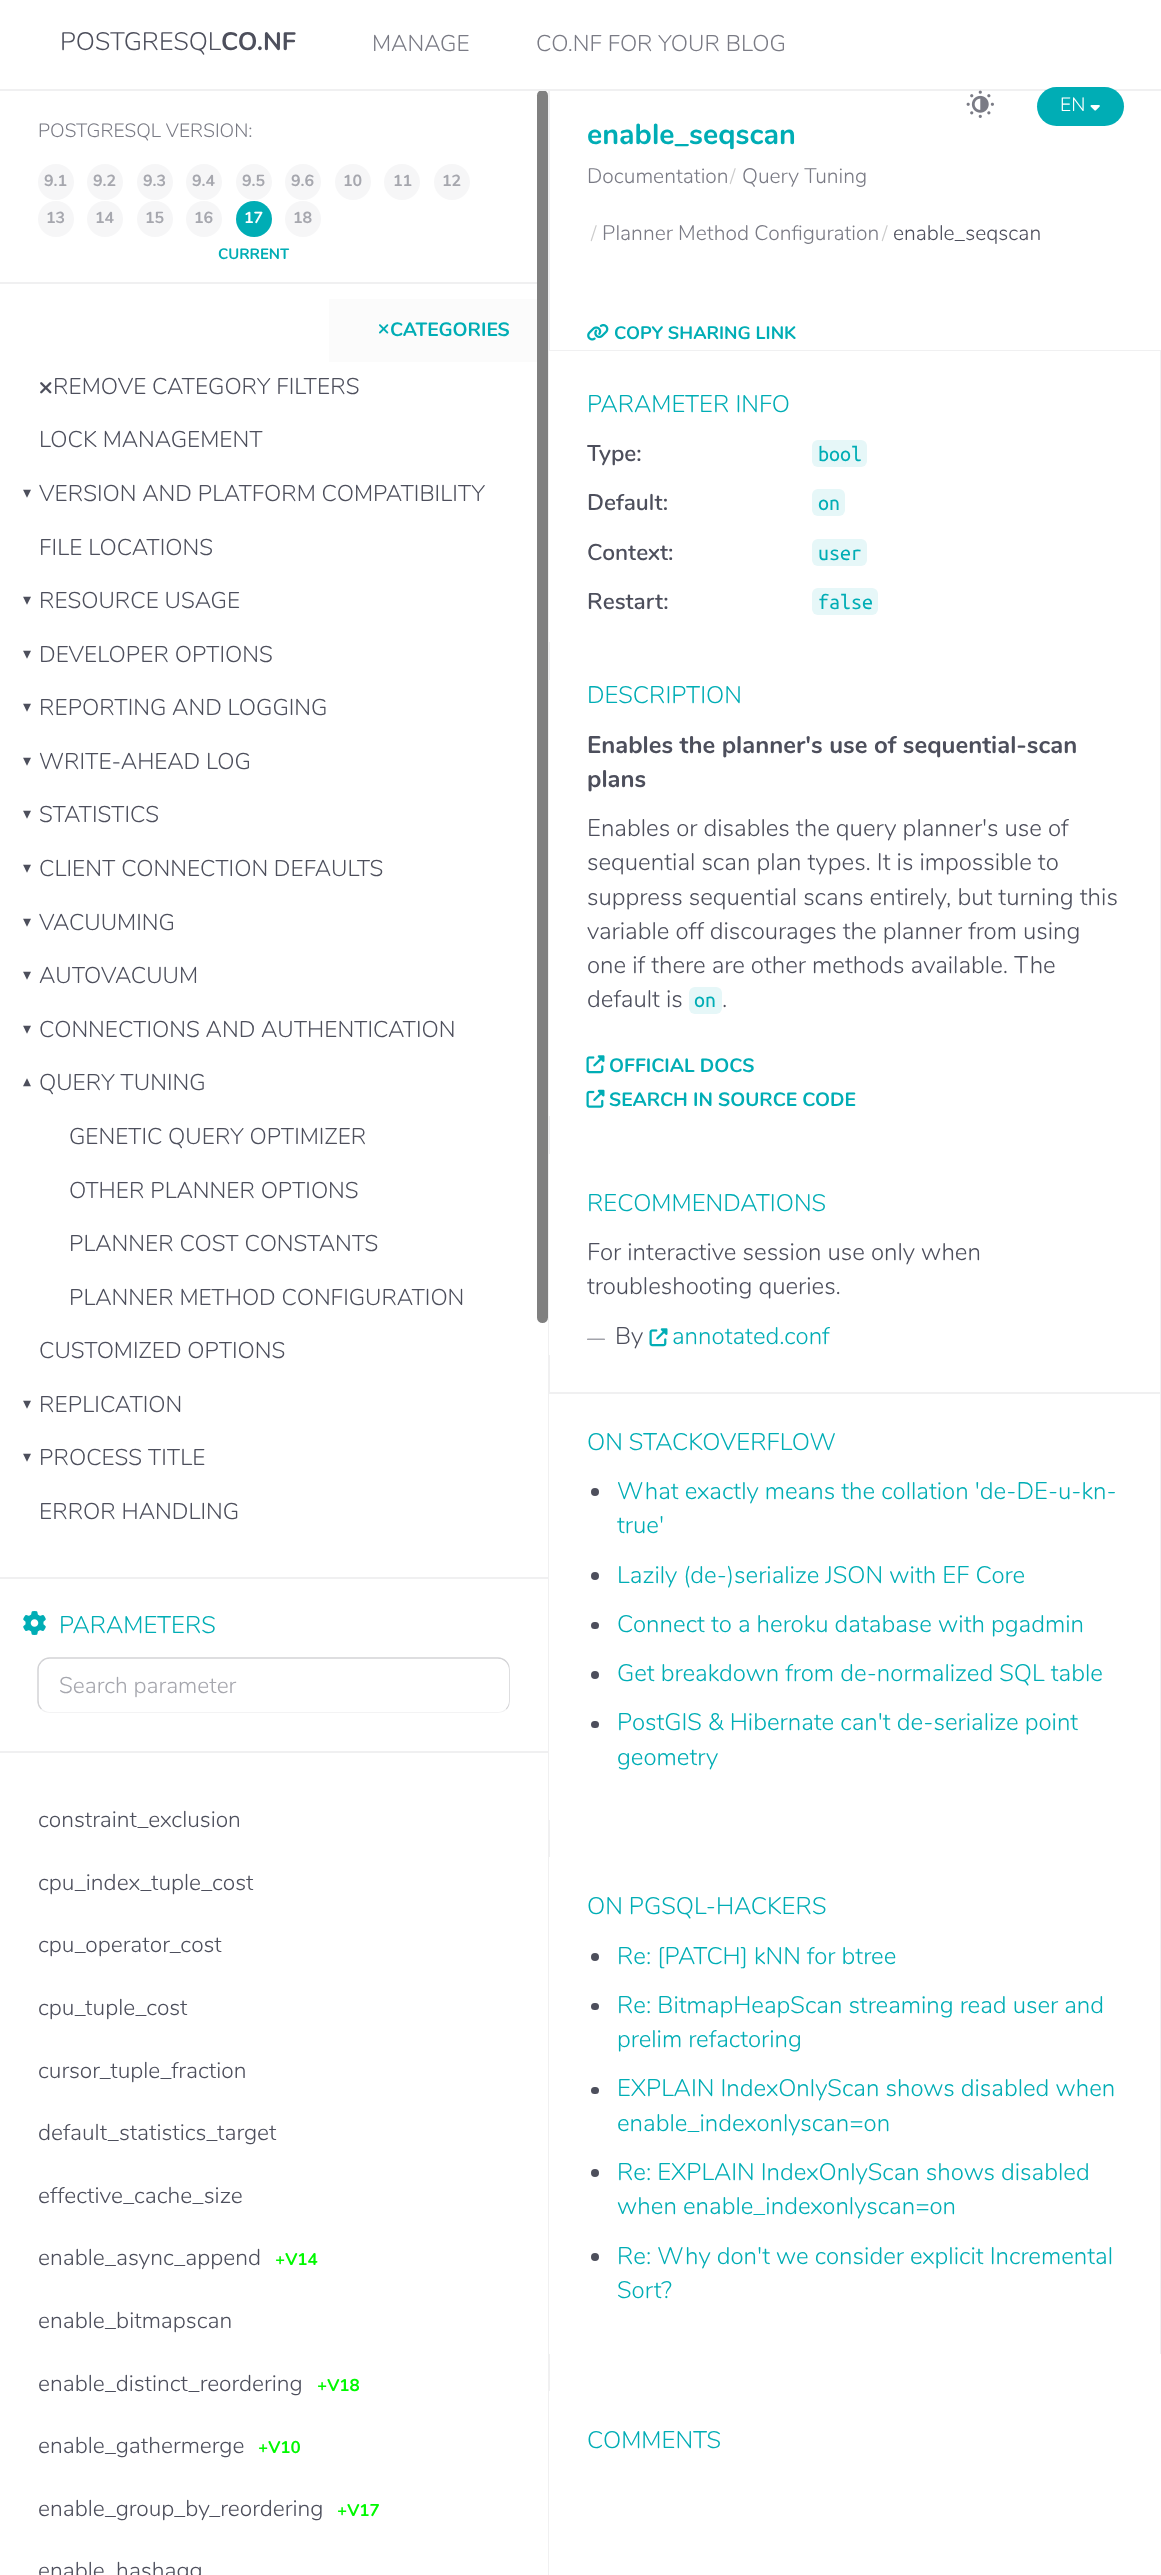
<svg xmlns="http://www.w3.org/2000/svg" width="1161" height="2575">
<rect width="100%" height="100%" fill="#fff"/>
<rect x="537" y="90" width="11" height="1233" rx="5.5" fill="#808080"/>
<rect y="89" width="1161" height="2" fill="#f0f0f1"/>
<text x="60" y="50" style="font-family:Nunito;font-size:25.25px;font-weight:300;fill:#4d4f5c">POSTGRESQL</text>
<text x="221" y="50" style="font-family:Nunito;font-size:25.25px;font-weight:bold;fill:#4d4f5c">CO.NF</text>
<text x="372" y="51" style="font-family:Nunito;font-size:22.75px;font-weight:300;fill:#7a7b85">MANAGE</text>
<text x="536" y="51" style="font-family:Nunito;font-size:22.75px;font-weight:300;fill:#7a7b85">CO.NF FOR YOUR BLOG</text>
<image x="966" y="90" width="28" height="28" href="media/1.png"/>
<rect x="1037" y="87" width="87" height="39" rx="19.5" fill="#00adb5"/>
<text x="1060" y="111" style="font-family:Nunito;font-size:19.25px;font-weight:300;fill:#fff">EN</text>
<image x="1090" y="105" width="10" height="6" href="media/2.png"/>
<rect y="282" width="537" height="2" fill="#f0f0f1"/>
<text x="38" y="137" style="font-family:Nunito;font-size:19.25px;font-weight:300;fill:#7a7b85">POSTGRESQL VERSION:</text>
<circle cx="56" cy="182" r="18" fill="#f6f6f7"/>
<text x="44" y="186" style="font-family:Nunito;font-size:16px;font-weight:bold;fill:#a6a7ae">9.1</text>
<circle cx="105" cy="182" r="18" fill="#f6f6f7"/>
<text x="93" y="186" style="font-family:Nunito;font-size:16px;font-weight:bold;fill:#a6a7ae">9.2</text>
<circle cx="155" cy="182" r="18" fill="#f6f6f7"/>
<text x="143" y="186" style="font-family:Nunito;font-size:16px;font-weight:bold;fill:#a6a7ae">9.3</text>
<circle cx="204" cy="182" r="18" fill="#f6f6f7"/>
<text x="192" y="186" style="font-family:Nunito;font-size:16px;font-weight:bold;fill:#a6a7ae">9.4</text>
<circle cx="254" cy="182" r="18" fill="#f6f6f7"/>
<text x="242" y="186" style="font-family:Nunito;font-size:16px;font-weight:bold;fill:#a6a7ae">9.5</text>
<circle cx="303" cy="182" r="18" fill="#f6f6f7"/>
<text x="291" y="186" style="font-family:Nunito;font-size:16px;font-weight:bold;fill:#a6a7ae">9.6</text>
<circle cx="353" cy="182" r="18" fill="#f6f6f7"/>
<text x="343" y="186" style="font-family:Nunito;font-size:16px;font-weight:bold;fill:#a6a7ae">10</text>
<circle cx="402" cy="182" r="18" fill="#f6f6f7"/>
<text x="393" y="186" style="font-family:Nunito;font-size:16px;font-weight:bold;fill:#a6a7ae">11</text>
<circle cx="452" cy="182" r="18" fill="#f6f6f7"/>
<text x="442" y="186" style="font-family:Nunito;font-size:16px;font-weight:bold;fill:#a6a7ae">12</text>
<circle cx="56" cy="219" r="18" fill="#f6f6f7"/>
<text x="46" y="223" style="font-family:Nunito;font-size:16px;font-weight:bold;fill:#a6a7ae">13</text>
<circle cx="105" cy="219" r="18" fill="#f6f6f7"/>
<text x="95" y="223" style="font-family:Nunito;font-size:16px;font-weight:bold;fill:#a6a7ae">14</text>
<circle cx="155" cy="219" r="18" fill="#f6f6f7"/>
<text x="145" y="223" style="font-family:Nunito;font-size:16px;font-weight:bold;fill:#a6a7ae">15</text>
<circle cx="204" cy="219" r="18" fill="#f6f6f7"/>
<text x="194" y="223" style="font-family:Nunito;font-size:16px;font-weight:bold;fill:#a6a7ae">16</text>
<circle cx="254" cy="219" r="18" fill="#00adb5"/>
<text x="244" y="223" style="font-family:Nunito;font-size:16px;font-weight:bold;fill:#fff">17</text>
<text x="218" y="259" style="font-family:Nunito;font-size:15px;font-weight:bold;fill:#00adb5">CURRENT</text>
<circle cx="303" cy="219" r="18" fill="#f6f6f7"/>
<text x="293" y="223" style="font-family:Nunito;font-size:16px;font-weight:bold;fill:#a6a7ae">18</text>
<rect y="1577" width="548" height="2" fill="#f0f0f1"/>
<rect x="329" y="299" width="208" height="63" fill="#fbfbfb"/>
<image x="379" y="324" width="10" height="10" href="media/3.png"/>
<text x="390" y="336" style="font-family:Nunito;font-size:19.25px;font-weight:bold;fill:#00adb5">CATEGORIES</text>
<image x="40" y="382" width="12" height="12" href="media/4.png"/>
<text x="53" y="394" style="font-family:Nunito;font-size:22.75px;font-weight:300;fill:#4d4f5c">REMOVE CATEGORY FILTERS</text>
<text x="39" y="447" style="font-family:Nunito;font-size:22.75px;font-weight:300;fill:#4d4f5c">LOCK MANAGEMENT</text>
<text x="23" y="498" style="font-family:DejaVu Sans;font-size:16px;fill:#4d4f5c">▾</text>
<text x="39" y="501" style="font-family:Nunito;font-size:22.75px;font-weight:300;fill:#4d4f5c">VERSION AND PLATFORM COMPATIBILITY</text>
<text x="39" y="555" style="font-family:Nunito;font-size:22.75px;font-weight:300;fill:#4d4f5c">FILE LOCATIONS</text>
<text x="23" y="605" style="font-family:DejaVu Sans;font-size:16px;fill:#4d4f5c">▾</text>
<text x="39" y="608" style="font-family:Nunito;font-size:22.75px;font-weight:300;fill:#4d4f5c">RESOURCE USAGE</text>
<text x="23" y="659" style="font-family:DejaVu Sans;font-size:16px;fill:#4d4f5c">▾</text>
<text x="39" y="662" style="font-family:Nunito;font-size:22.75px;font-weight:300;fill:#4d4f5c">DEVELOPER OPTIONS</text>
<text x="23" y="712" style="font-family:DejaVu Sans;font-size:16px;fill:#4d4f5c">▾</text>
<text x="39" y="715" style="font-family:Nunito;font-size:22.75px;font-weight:300;fill:#4d4f5c">REPORTING AND LOGGING</text>
<text x="23" y="766" style="font-family:DejaVu Sans;font-size:16px;fill:#4d4f5c">▾</text>
<text x="39" y="769" style="font-family:Nunito;font-size:22.75px;font-weight:300;fill:#4d4f5c">WRITE-AHEAD LOG</text>
<text x="23" y="819" style="font-family:DejaVu Sans;font-size:16px;fill:#4d4f5c">▾</text>
<text x="39" y="822" style="font-family:Nunito;font-size:22.75px;font-weight:300;fill:#4d4f5c">STATISTICS</text>
<text x="23" y="873" style="font-family:DejaVu Sans;font-size:16px;fill:#4d4f5c">▾</text>
<text x="39" y="876" style="font-family:Nunito;font-size:22.75px;font-weight:300;fill:#4d4f5c">CLIENT CONNECTION DEFAULTS</text>
<text x="23" y="927" style="font-family:DejaVu Sans;font-size:16px;fill:#4d4f5c">▾</text>
<text x="39" y="930" style="font-family:Nunito;font-size:22.75px;font-weight:300;fill:#4d4f5c">VACUUMING</text>
<text x="23" y="980" style="font-family:DejaVu Sans;font-size:16px;fill:#4d4f5c">▾</text>
<text x="39" y="983" style="font-family:Nunito;font-size:22.75px;font-weight:300;fill:#4d4f5c">AUTOVACUUM</text>
<text x="23" y="1034" style="font-family:DejaVu Sans;font-size:16px;fill:#4d4f5c">▾</text>
<text x="39" y="1037" style="font-family:Nunito;font-size:22.75px;font-weight:300;fill:#4d4f5c">CONNECTIONS AND AUTHENTICATION</text>
<text x="31" y="1078" transform="rotate(180 31 1078)" style="font-family:DejaVu Sans;font-size:16px;fill:#4d4f5c">▾</text>
<text x="39" y="1090" style="font-family:Nunito;font-size:22.75px;font-weight:300;fill:#4d4f5c">QUERY TUNING</text>
<text x="69" y="1144" style="font-family:Nunito;font-size:22.75px;font-weight:300;fill:#4d4f5c">GENETIC QUERY OPTIMIZER</text>
<text x="69" y="1198" style="font-family:Nunito;font-size:22.75px;font-weight:300;fill:#4d4f5c">OTHER PLANNER OPTIONS</text>
<text x="69" y="1251" style="font-family:Nunito;font-size:22.75px;font-weight:300;fill:#4d4f5c">PLANNER COST CONSTANTS</text>
<text x="69" y="1305" style="font-family:Nunito;font-size:22.75px;font-weight:300;fill:#4d4f5c">PLANNER METHOD CONFIGURATION</text>
<text x="39" y="1358" style="font-family:Nunito;font-size:22.75px;font-weight:300;fill:#4d4f5c">CUSTOMIZED OPTIONS</text>
<text x="23" y="1409" style="font-family:DejaVu Sans;font-size:16px;fill:#4d4f5c">▾</text>
<text x="39" y="1412" style="font-family:Nunito;font-size:22.75px;font-weight:300;fill:#4d4f5c">REPLICATION</text>
<text x="23" y="1462" style="font-family:DejaVu Sans;font-size:16px;fill:#4d4f5c">▾</text>
<text x="39" y="1465" style="font-family:Nunito;font-size:22.75px;font-weight:300;fill:#4d4f5c">PROCESS TITLE</text>
<text x="39" y="1519" style="font-family:Nunito;font-size:22.75px;font-weight:300;fill:#4d4f5c">ERROR HANDLING</text>
<image x="23" y="1611" width="23" height="24" href="media/5.png"/>
<text x="59" y="1633" style="font-family:Nunito;font-size:24px;font-weight:300;fill:#00adb5">PARAMETERS</text>
<path d="M506 1709c-2 2-5 3-8 3h-448.5c-3 0-6-1-8-3" fill="none" stroke="#f0f0f1" stroke-width="1.5"/>
<path d="M41.5 1709c-2-2-3.5-5-3.5-8v-31.5c0-3 1.5-6 3.5-8c2-2 5-3.5 8-3.5h448.5c3 0 6 1.5 8 3.5c2 2 3 5 3 8v31.5c0 3-1 6-3 8" fill="none" stroke="#d3d3d6" stroke-width="1.5"/>
<path d="M50 1659h399v53h-399c-6 0-11-5-11-11v-31c0-6 5-11 11-11z" fill="#fff"/>
<text x="59" y="1693" style="font-family:Nunito;font-size:22.75px;font-weight:300;fill:#a6a7ae">Search parameter</text>
<path d="M447 1659h51c6 0 11 5 11 11v31c0 6-5 11-11 11h-51z" fill="#fff"/>
<rect y="1751" width="548" height="2" fill="#f0f0f1"/>
<text x="38" y="1827" style="font-family:Nunito;font-size:22.75px;font-weight:300;fill:#4d4f5c">constraint_exclusion</text>
<text x="38" y="1890" style="font-family:Nunito;font-size:22.75px;font-weight:300;fill:#4d4f5c">cpu_index_tuple_cost</text>
<text x="38" y="1952" style="font-family:Nunito;font-size:22.75px;font-weight:300;fill:#4d4f5c">cpu_operator_cost</text>
<text x="38" y="2015" style="font-family:Nunito;font-size:22.75px;font-weight:300;fill:#4d4f5c">cpu_tuple_cost</text>
<text x="38" y="2078" style="font-family:Nunito;font-size:22.75px;font-weight:300;fill:#4d4f5c">cursor_tuple_fraction</text>
<text x="38" y="2140" style="font-family:Nunito;font-size:22.75px;font-weight:300;fill:#4d4f5c">default_statistics_target</text>
<text x="38" y="2203" style="font-family:Nunito;font-size:22.75px;font-weight:300;fill:#4d4f5c">effective_cache_size</text>
<text x="38" y="2265" style="font-family:Nunito;font-size:22.75px;font-weight:300;fill:#4d4f5c">enable_async_append</text>
<text x="275" y="2265" style="font-family:Nunito;font-size:17px;font-weight:bold;fill:#00f900">+V14</text>
<text x="38" y="2328" style="font-family:Nunito;font-size:22.75px;font-weight:300;fill:#4d4f5c">enable_bitmapscan</text>
<text x="38" y="2391" style="font-family:Nunito;font-size:22.75px;font-weight:300;fill:#4d4f5c">enable_distinct_reordering</text>
<text x="317" y="2391" style="font-family:Nunito;font-size:17px;font-weight:bold;fill:#00f900">+V18</text>
<text x="38" y="2453" style="font-family:Nunito;font-size:22.75px;font-weight:300;fill:#4d4f5c">enable_gathermerge</text>
<text x="258" y="2453" style="font-family:Nunito;font-size:17px;font-weight:bold;fill:#00f900">+V10</text>
<text x="38" y="2516" style="font-family:Nunito;font-size:22.75px;font-weight:300;fill:#4d4f5c">enable_group_by_reordering</text>
<text x="337" y="2516" style="font-family:Nunito;font-size:17px;font-weight:bold;fill:#00f900">+V17</text>
<text x="38" y="2578" style="font-family:Nunito;font-size:22.75px;font-weight:300;fill:#4d4f5c">enable_hashagg</text>
<rect x="548" y="91" width="2" height="2484" fill="#f0f0f1"/>
<rect x="549" y="350" width="612" height="1" fill="#f0f0f1"/>
<text x="587" y="144" style="font-family:Nunito;font-size:28.75px;font-weight:bold;fill:#00adb5">enable_seqscan</text>
<text x="587" y="183" style="font-family:Nunito;font-size:21px;font-weight:300;fill:#7a7b85">Documentation</text>
<text x="730" y="183" style="font-family:Nunito;font-size:20px;font-weight:300;fill:#ccc">/</text>
<text x="742" y="183" style="font-family:Nunito;font-size:21px;font-weight:300;fill:#7a7b85">Query Tuning</text>
<text x="591" y="240" style="font-family:Nunito;font-size:20px;font-weight:300;fill:#ccc">/</text>
<text x="602" y="240" style="font-family:Nunito;font-size:21px;font-weight:300;fill:#7a7b85">Planner Method Configuration</text>
<text x="882" y="240" style="font-family:Nunito;font-size:20px;font-weight:300;fill:#ccc">/</text>
<text x="893" y="240" style="font-family:Nunito;font-size:21px;font-weight:300;fill:#4d4f5c">enable_seqscan</text>
<image x="587" y="324" width="22" height="17" href="media/6.png"/>
<text x="614" y="339" style="font-family:Nunito;font-size:18px;font-weight:bold;fill:#00adb5">COPY SHARING LINK</text>
<rect x="1160" y="351" width="1" height="2003" fill="#f0f0f1"/>
<rect x="549" y="351" width="1" height="291" fill="#fff"/>
<text x="587" y="412" style="font-family:Nunito;font-size:24px;font-weight:300;fill:#00adb5">PARAMETER INFO</text>
<text x="587" y="461" style="font-family:Nunito;font-size:22.75px;font-weight:600;fill:#4d4f5c">Type:</text>
<rect x="812" y="440" width="55" height="27" rx="6" fill="#e6f7f8"/>
<text x="818" y="461" style="font-family:Ubuntu Mono;font-size:22px;fill:#00adb5">bool</text>
<text x="587" y="510" style="font-family:Nunito;font-size:22.75px;font-weight:600;fill:#4d4f5c">Default:</text>
<rect x="812" y="489" width="33" height="27" rx="6" fill="#e6f7f8"/>
<text x="818" y="510" style="font-family:Ubuntu Mono;font-size:22px;fill:#00adb5">on</text>
<text x="587" y="560" style="font-family:Nunito;font-size:22.75px;font-weight:600;fill:#4d4f5c">Context:</text>
<rect x="812" y="539" width="55" height="27" rx="6" fill="#e6f7f8"/>
<text x="818" y="560" style="font-family:Ubuntu Mono;font-size:22px;fill:#00adb5">user</text>
<text x="587" y="609" style="font-family:Nunito;font-size:22.75px;font-weight:600;fill:#4d4f5c">Restart:</text>
<rect x="812" y="588" width="66" height="27" rx="6" fill="#e6f7f8"/>
<text x="818" y="609" style="font-family:Ubuntu Mono;font-size:22px;fill:#00adb5">false</text>
<rect x="549" y="680" width="1" height="436" fill="#fff"/>
<text x="587" y="703" style="font-family:Nunito;font-size:24px;font-weight:300;fill:#00adb5">DESCRIPTION</text>
<text x="587" y="753" style="font-family:Nunito;font-size:24px;font-weight:bold;fill:#4d4f5c">Enables the planner's use of sequential-scan</text>
<text x="587" y="787" style="font-family:Nunito;font-size:24px;font-weight:bold;fill:#4d4f5c">plans</text>
<text x="587" y="836" style="font-family:Nunito;font-size:24px;font-weight:300;fill:#4d4f5c">Enables or disables the query planner's use of</text>
<text x="587" y="870" style="font-family:Nunito;font-size:24px;font-weight:300;fill:#4d4f5c">sequential scan plan types. It is impossible to</text>
<text x="587" y="905" style="font-family:Nunito;font-size:24px;font-weight:300;fill:#4d4f5c">suppress sequential scans entirely, but turning this</text>
<text x="587" y="939" style="font-family:Nunito;font-size:24px;font-weight:300;fill:#4d4f5c">variable off discourages the planner from using</text>
<text x="587" y="973" style="font-family:Nunito;font-size:24px;font-weight:300;fill:#4d4f5c">one if there are other methods available. The</text>
<text x="587" y="1007" style="font-family:Nunito;font-size:24px;font-weight:300;fill:#4d4f5c">default is</text>
<rect x="689" y="987" width="33" height="27" rx="6" fill="#e6f7f8"/>
<text x="694" y="1007" style="font-family:Ubuntu Mono;font-size:22px;fill:#00adb5">on</text>
<text x="722" y="1007" style="font-family:Nunito;font-size:24px;font-weight:300;fill:#4d4f5c">.</text>
<image x="586" y="1055" width="19" height="19" href="media/7.png"/>
<text x="609" y="1072" style="font-family:Nunito;font-size:19.25px;font-weight:bold;fill:#00adb5">OFFICIAL DOCS</text>
<image x="586" y="1089" width="19" height="19" href="media/8.png"/>
<text x="609" y="1106" style="font-family:Nunito;font-size:19.25px;font-weight:bold;fill:#00adb5">SEARCH IN SOURCE CODE</text>
<rect x="549" y="1154" width="1" height="201" fill="#fff"/>
<text x="587" y="1211" style="font-family:Nunito;font-size:24px;font-weight:300;fill:#00adb5">RECOMMENDATIONS</text>
<text x="587" y="1260" style="font-family:Nunito;font-size:24px;font-weight:300;fill:#4d4f5c">For interactive session use only when</text>
<text x="587" y="1294" style="font-family:Nunito;font-size:24px;font-weight:300;fill:#4d4f5c">troubleshooting queries.</text>
<text x="587" y="1344" style="font-family:Nunito;font-size:18px;font-weight:300;fill:#4d4f5c">—</text>
<text x="615" y="1344" style="font-family:Nunito;font-size:24px;font-weight:300;fill:#4d4f5c">By</text>
<image x="649" y="1328" width="19" height="19" href="media/7.png"/>
<text x="672" y="1344" style="font-family:Nunito;font-size:24px;font-weight:300;fill:#00adb5">annotated.conf</text>
<rect x="549" y="1394" width="1" height="426" fill="#fff"/>
<rect x="549" y="1392" width="611" height="2" fill="#f0f0f1"/>
<text x="587" y="1450" style="font-family:Nunito;font-size:24px;font-weight:300;fill:#00adb5">ON STACKOVERFLOW</text>
<circle cx="595" cy="1492" r="4" fill="#4d4f5c"/>
<text x="617" y="1499" style="font-family:Nunito;font-size:24px;font-weight:300;fill:#00adb5">What exactly means the collation 'de-DE-u-kn-</text>
<text x="617" y="1533" style="font-family:Nunito;font-size:24px;font-weight:300;fill:#00adb5">true'</text>
<circle cx="595" cy="1576" r="4" fill="#4d4f5c"/>
<text x="617" y="1583" style="font-family:Nunito;font-size:24px;font-weight:300;fill:#00adb5">Lazily (de-)serialize JSON with EF Core</text>
<rect x="591" y="1622" width="8" height="7" rx="3.5" fill="#4d4f5c"/>
<text x="617" y="1632" style="font-family:Nunito;font-size:24px;font-weight:300;fill:#00adb5">Connect to a heroku database with pgadmin</text>
<circle cx="595" cy="1675" r="4" fill="#4d4f5c"/>
<text x="617" y="1681" style="font-family:Nunito;font-size:24px;font-weight:300;fill:#00adb5">Get breakdown from de-normalized SQL table</text>
<rect x="591" y="1721" width="8" height="7" rx="3.5" fill="#4d4f5c"/>
<text x="617" y="1730" style="font-family:Nunito;font-size:24px;font-weight:300;fill:#00adb5">PostGIS &amp; Hibernate can't de-serialize point</text>
<text x="617" y="1765" style="font-family:Nunito;font-size:24px;font-weight:300;fill:#00adb5">geometry</text>
<rect x="549" y="1857" width="1" height="497" fill="#fff"/>
<text x="587" y="1914" style="font-family:Nunito;font-size:24px;font-weight:300;fill:#00adb5">ON PGSQL-HACKERS</text>
<circle cx="595" cy="1957" r="4" fill="#4d4f5c"/>
<text x="617" y="1964" style="font-family:Nunito;font-size:24px;font-weight:300;fill:#00adb5">Re: [PATCH] kNN for btree</text>
<rect x="591" y="2003" width="8" height="7" rx="3.5" fill="#4d4f5c"/>
<text x="617" y="2013" style="font-family:Nunito;font-size:24px;font-weight:300;fill:#00adb5">Re: BitmapHeapScan streaming read user and</text>
<text x="617" y="2047" style="font-family:Nunito;font-size:24px;font-weight:300;fill:#00adb5">prelim refactoring</text>
<rect x="591" y="2087" width="8" height="7" rx="3.5" fill="#4d4f5c"/>
<text x="617" y="2096" style="font-family:Nunito;font-size:24px;font-weight:300;fill:#00adb5">EXPLAIN IndexOnlyScan shows disabled when</text>
<text x="617" y="2131" style="font-family:Nunito;font-size:24px;font-weight:300;fill:#00adb5">enable_indexonlyscan=on</text>
<circle cx="595" cy="2173" r="4" fill="#4d4f5c"/>
<text x="617" y="2180" style="font-family:Nunito;font-size:24px;font-weight:300;fill:#00adb5">Re: EXPLAIN IndexOnlyScan shows disabled</text>
<text x="617" y="2214" style="font-family:Nunito;font-size:24px;font-weight:300;fill:#00adb5">when enable_indexonlyscan=on</text>
<circle cx="595" cy="2257" r="4" fill="#4d4f5c"/>
<text x="617" y="2264" style="font-family:Nunito;font-size:24px;font-weight:300;fill:#00adb5">Re: Why don't we consider explicit Incremental</text>
<text x="617" y="2298" style="font-family:Nunito;font-size:24px;font-weight:300;fill:#00adb5">Sort?</text>
<rect x="549" y="2391" width="1" height="184" fill="#fff"/>
<text x="587" y="2448" style="font-family:Nunito;font-size:24px;font-weight:300;fill:#00adb5">COMMENTS</text>
</svg>
